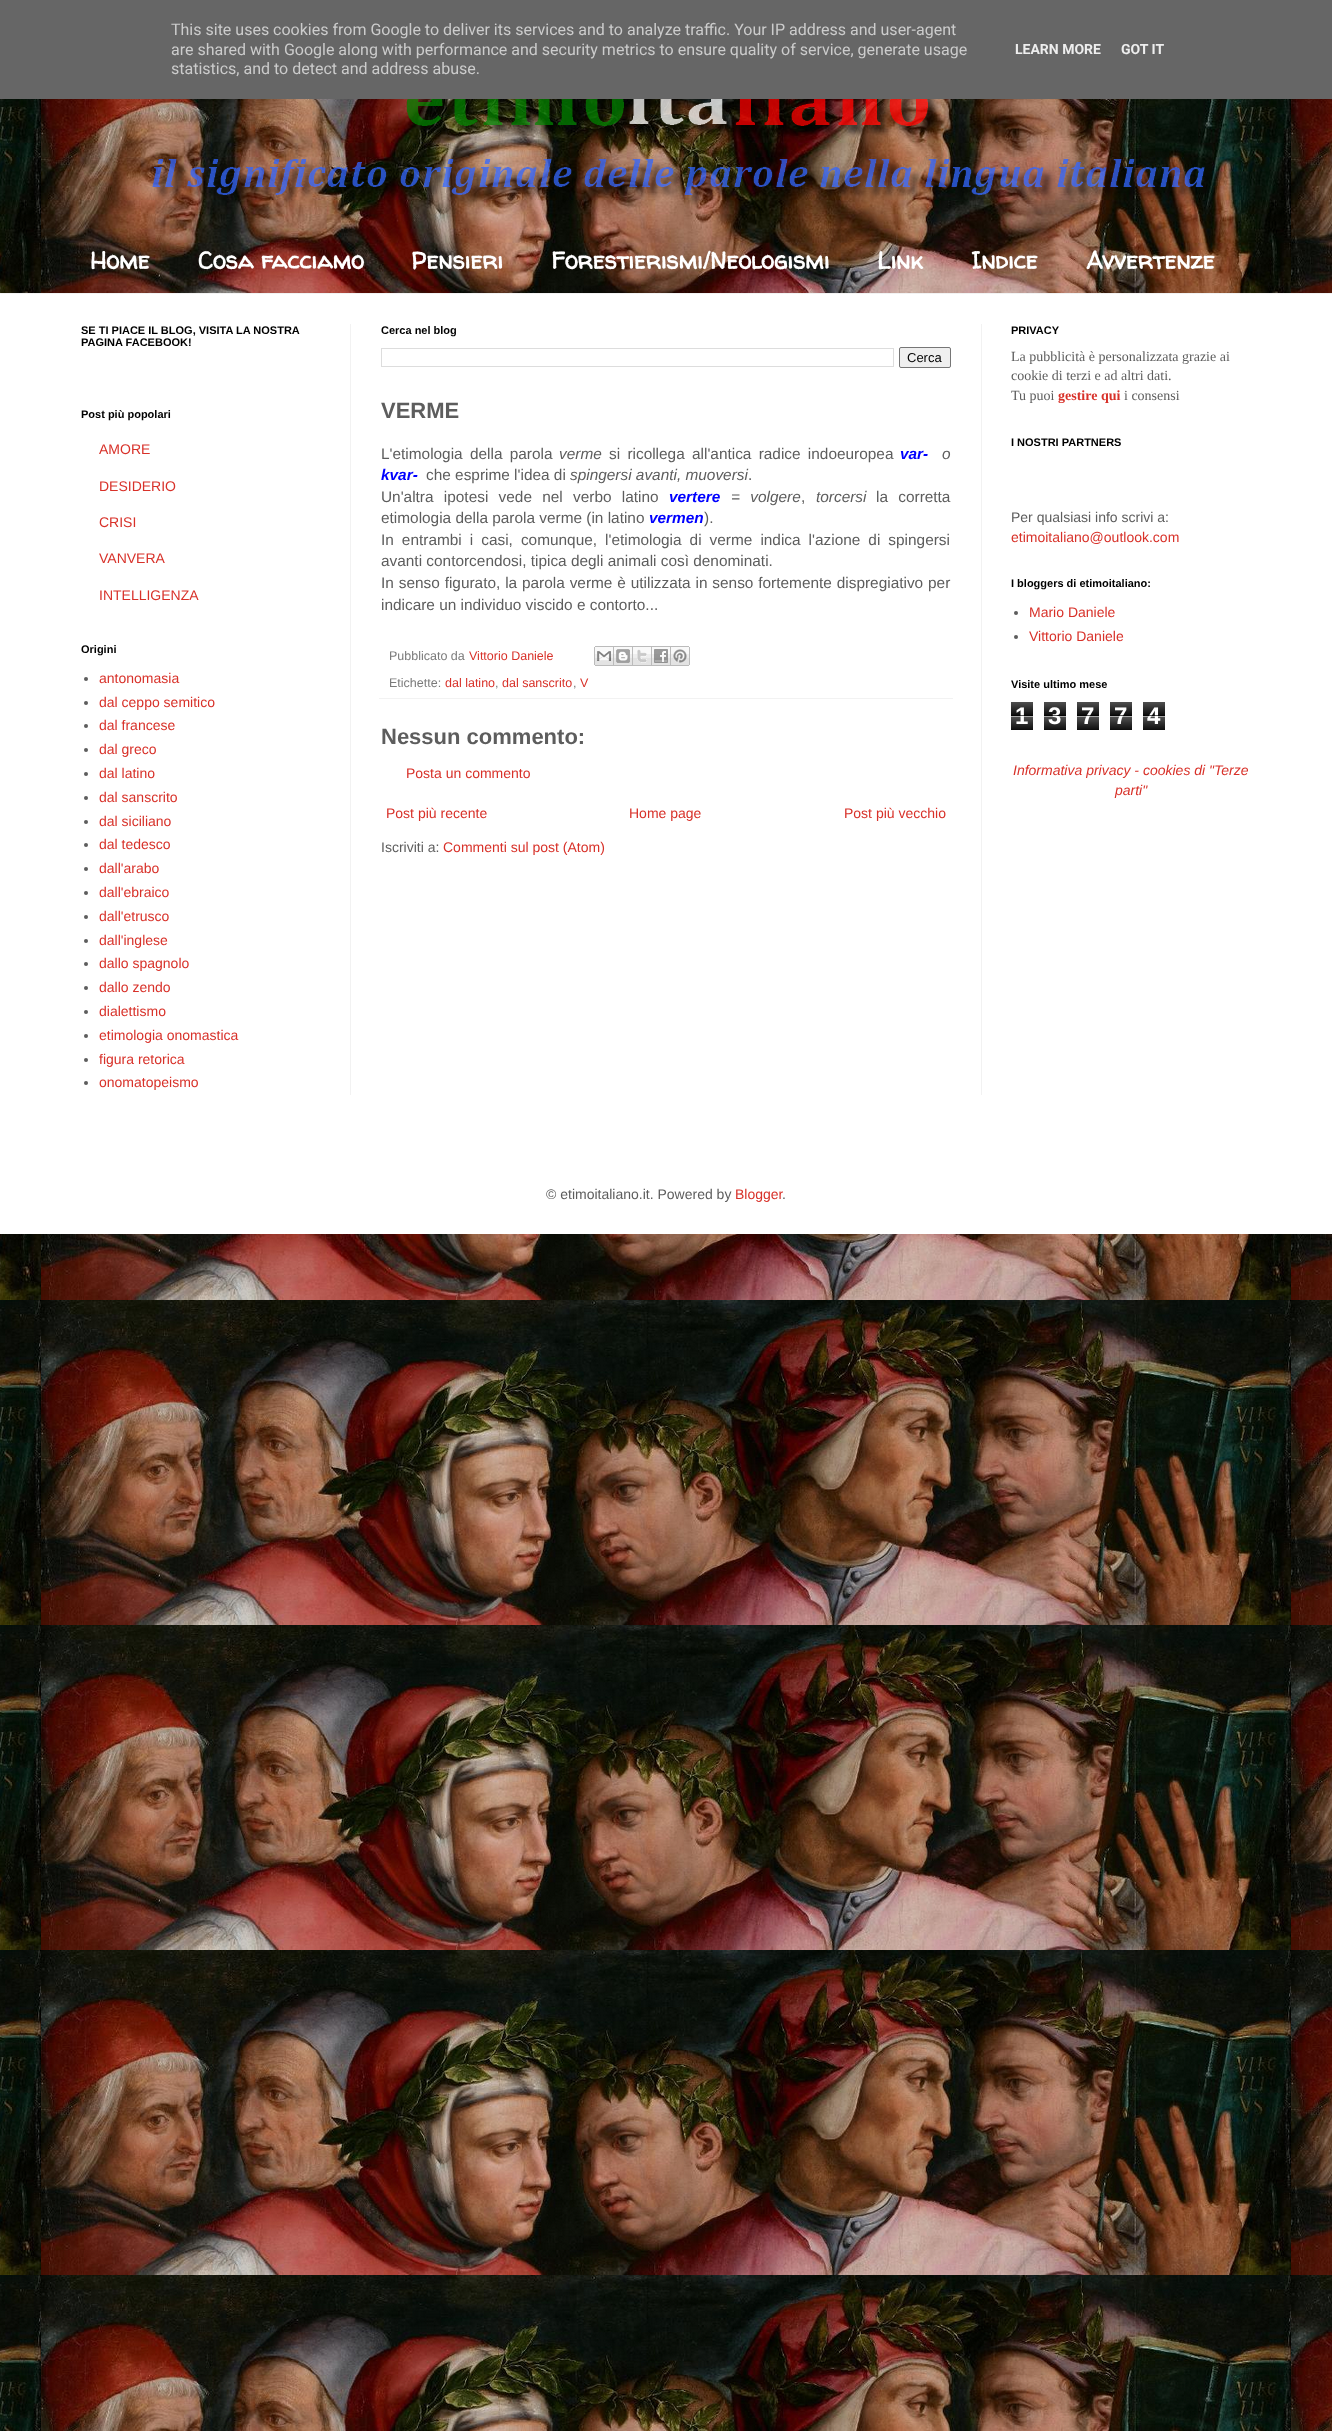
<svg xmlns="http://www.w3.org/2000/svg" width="1332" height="2431">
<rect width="100%" height="100%" fill="#fff"/>
<image x="0" y="99" width="1332" height="2332" href="media/1.png"/>
<rect width="1332" height="99" fill="#666"/>
<text x="171" y="35" style="font-family:Roboto;font-size:16px;fill:#ccc">This site uses cookies from Google to deliver its services and to analyze traffic. Your IP address and user-agent</text>
<text x="171" y="55" style="font-family:Roboto;font-size:16px;fill:#ccc">are shared with Google along with performance and security metrics to ensure quality of service, generate usage</text>
<text x="171" y="74" style="font-family:Roboto;font-size:16px;fill:#ccc">statistics, and to detect and address abuse.</text>
<text x="1015" y="54" style="font-family:Roboto;font-size:14px;font-weight:bold;fill:#eee">LEARN MORE</text>
<text x="1121" y="54" style="font-family:Roboto;font-size:14px;font-weight:bold;fill:#eee">GOT IT</text>
<image x="152" y="99" width="1062" height="108" href="media/2.png"/>
<text x="90" y="269" style="font-family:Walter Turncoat;font-size:24px;font-weight:bold;fill:#fff">Home</text>
<text x="198" y="269" style="font-family:Walter Turncoat;font-size:24px;font-weight:bold;fill:#fff">Cosa facciamo</text>
<text x="411" y="269" style="font-family:Walter Turncoat;font-size:24px;font-weight:bold;fill:#fff">Pensieri</text>
<text x="551" y="269" style="font-family:Walter Turncoat;font-size:24px;font-weight:bold;fill:#fff">Forestierismi/Neologismi</text>
<text x="877" y="269" style="font-family:Walter Turncoat;font-size:24px;font-weight:bold;fill:#fff">Link</text>
<text x="971" y="269" style="font-family:Walter Turncoat;font-size:24px;font-weight:bold;fill:#fff">Indice</text>
<text x="1086" y="269" style="font-family:Walter Turncoat;font-size:24px;font-weight:bold;fill:#fff">Avvertenze</text>
<rect y="294" width="1332" height="940" fill="#fff"/>
<rect y="293" width="1332" height="1" fill="#f2f2f2"/>
<rect x="350" y="324" width="1" height="771" fill="#f2f2f2"/>
<rect x="981" y="324" width="1" height="771" fill="#f2f2f2"/>
<text x="81" y="334" style="font-family:Liberation Sans;font-size:11px;font-weight:bold;fill:#000">SE TI PIACE IL BLOG, VISITA LA NOSTRA</text>
<text x="81" y="346" style="font-family:Liberation Sans;font-size:11px;font-weight:bold;fill:#000">PAGINA FACEBOOK!</text>
<text x="81" y="418" style="font-family:Liberation Sans;font-size:11px;font-weight:bold;fill:#000">Post più popolari</text>
<text x="99" y="454" style="font-family:Liberation Sans;font-size:14px;fill:#d83129">AMORE</text>
<text x="99" y="491" style="font-family:Liberation Sans;font-size:14px;fill:#d83129">DESIDERIO</text>
<text x="99" y="527" style="font-family:Liberation Sans;font-size:14px;fill:#d83129">CRISI</text>
<text x="99" y="563" style="font-family:Liberation Sans;font-size:14px;fill:#d83129">VANVERA</text>
<text x="99" y="600" style="font-family:Liberation Sans;font-size:14px;fill:#d83129">INTELLIGENZA</text>
<text x="81" y="653" style="font-family:Liberation Sans;font-size:11px;font-weight:bold;fill:#000">Origini</text>
<circle cx="86" cy="679" r="2" fill="#5d5d5d"/>
<text x="99" y="683" style="font-family:Liberation Sans;font-size:14px;fill:#d83129">antonomasia</text>
<circle cx="86" cy="703" r="2" fill="#5d5d5d"/>
<text x="99" y="707" style="font-family:Liberation Sans;font-size:14px;fill:#d83129">dal ceppo semitico</text>
<circle cx="86" cy="726" r="2" fill="#5d5d5d"/>
<text x="99" y="730" style="font-family:Liberation Sans;font-size:14px;fill:#d83129">dal francese</text>
<circle cx="86" cy="750" r="2" fill="#5d5d5d"/>
<text x="99" y="754" style="font-family:Liberation Sans;font-size:14px;fill:#d83129">dal greco</text>
<circle cx="86" cy="774" r="2" fill="#5d5d5d"/>
<text x="99" y="778" style="font-family:Liberation Sans;font-size:14px;fill:#d83129">dal latino</text>
<circle cx="86" cy="798" r="2" fill="#5d5d5d"/>
<text x="99" y="802" style="font-family:Liberation Sans;font-size:14px;fill:#d83129">dal sanscrito</text>
<circle cx="86" cy="822" r="2" fill="#5d5d5d"/>
<text x="99" y="826" style="font-family:Liberation Sans;font-size:14px;fill:#d83129">dal siciliano</text>
<circle cx="86" cy="845" r="2" fill="#5d5d5d"/>
<text x="99" y="849" style="font-family:Liberation Sans;font-size:14px;fill:#d83129">dal tedesco</text>
<circle cx="86" cy="869" r="2" fill="#5d5d5d"/>
<text x="99" y="873" style="font-family:Liberation Sans;font-size:14px;fill:#d83129">dall'arabo</text>
<circle cx="86" cy="893" r="2" fill="#5d5d5d"/>
<text x="99" y="897" style="font-family:Liberation Sans;font-size:14px;fill:#d83129">dall'ebraico</text>
<circle cx="86" cy="917" r="2" fill="#5d5d5d"/>
<text x="99" y="921" style="font-family:Liberation Sans;font-size:14px;fill:#d83129">dall'etrusco</text>
<circle cx="86" cy="941" r="2" fill="#5d5d5d"/>
<text x="99" y="945" style="font-family:Liberation Sans;font-size:14px;fill:#d83129">dall'inglese</text>
<circle cx="86" cy="964" r="2" fill="#5d5d5d"/>
<text x="99" y="968" style="font-family:Liberation Sans;font-size:14px;fill:#d83129">dallo spagnolo</text>
<circle cx="86" cy="988" r="2" fill="#5d5d5d"/>
<text x="99" y="992" style="font-family:Liberation Sans;font-size:14px;fill:#d83129">dallo zendo</text>
<circle cx="86" cy="1012" r="2" fill="#5d5d5d"/>
<text x="99" y="1016" style="font-family:Liberation Sans;font-size:14px;fill:#d83129">dialettismo</text>
<circle cx="86" cy="1036" r="2" fill="#5d5d5d"/>
<text x="99" y="1040" style="font-family:Liberation Sans;font-size:14px;fill:#d83129">etimologia onomastica</text>
<circle cx="86" cy="1060" r="2" fill="#5d5d5d"/>
<text x="99" y="1064" style="font-family:Liberation Sans;font-size:14px;fill:#d83129">figura retorica</text>
<circle cx="86" cy="1083" r="2" fill="#5d5d5d"/>
<text x="99" y="1087" style="font-family:Liberation Sans;font-size:14px;fill:#d83129">onomatopeismo</text>
<text x="381" y="334" style="font-family:Liberation Sans;font-size:11px;font-weight:bold;fill:#000">Cerca nel blog</text>
<rect x="381.5" y="348.5" width="512" height="18" fill="none" stroke="#ddd"/>
<rect x="899.5" y="347.5" width="51" height="20" rx="1.5" fill="#efefef" stroke="#767676"/>
<text x="907" y="362" style="font-family:Liberation Sans;font-size:13px;fill:#000">Cerca</text>
<text x="381" y="418" style="font-family:Liberation Sans;font-size:22px;font-weight:bold;fill:#5d5d5d">VERME</text>
<text x="381" y="459" word-spacing="3" style="font-family:Liberation Sans;font-size:15.4px;fill:#5d5d5d">L'etimologia della parola</text>
<text x="559" y="459" style="font-family:Liberation Sans;font-size:15.4px;font-style:italic;fill:#5d5d5d">verme</text>
<text x="609" y="459" word-spacing="3" style="font-family:Liberation Sans;font-size:15.4px;fill:#5d5d5d">si ricollega all'antica radice indoeuropea</text>
<text x="900" y="459" style="font-family:Liberation Sans;font-size:15.4px;font-weight:bold;font-style:italic;fill:#00f">var-</text>
<text x="942" y="459" style="font-family:Liberation Sans;font-size:15.4px;font-style:italic;fill:#5d5d5d">o</text>
<text x="381" y="480" style="font-family:Liberation Sans;font-size:15.4px;font-weight:bold;font-style:italic;fill:#00f">kvar-</text>
<text x="426" y="480" style="font-family:Liberation Sans;font-size:15.4px;fill:#5d5d5d">che esprime l'idea di</text>
<text x="570" y="480" style="font-family:Liberation Sans;font-size:15.4px;font-style:italic;fill:#5d5d5d">spingersi avanti, muoversi</text>
<text x="748" y="480" style="font-family:Liberation Sans;font-size:15.4px;fill:#5d5d5d">.</text>
<text x="381" y="502" word-spacing="6" style="font-family:Liberation Sans;font-size:15.4px;fill:#5d5d5d">Un'altra ipotesi vede nel verbo latino</text>
<text x="669" y="502" style="font-family:Liberation Sans;font-size:15.4px;font-weight:bold;font-style:italic;fill:#00f">vertere</text>
<text x="731" y="502" word-spacing="6" style="font-family:Liberation Sans;font-size:15.4px;font-style:italic;fill:#5d5d5d">= volgere</text>
<text x="801" y="502" style="font-family:Liberation Sans;font-size:15.4px;fill:#5d5d5d">,</text>
<text x="816" y="502" style="font-family:Liberation Sans;font-size:15.4px;font-style:italic;fill:#5d5d5d">torcersi</text>
<text x="876" y="502" word-spacing="6" style="font-family:Liberation Sans;font-size:15.4px;fill:#5d5d5d">la corretta</text>
<text x="381" y="523" style="font-family:Liberation Sans;font-size:15.4px;fill:#5d5d5d">etimologia della parola verme (in latino</text>
<text x="649" y="523" style="font-family:Liberation Sans;font-size:15.4px;font-weight:bold;font-style:italic;fill:#00f">vermen</text>
<text x="704" y="523" style="font-family:Liberation Sans;font-size:15.4px;fill:#5d5d5d">).</text>
<text x="381" y="545" word-spacing="3.75" style="font-family:Liberation Sans;font-size:15.4px;fill:#5d5d5d">In entrambi i casi, comunque, l'etimologia di verme indica l'azione di spingersi</text>
<text x="381" y="566" style="font-family:Liberation Sans;font-size:15.4px;fill:#5d5d5d">avanti contorcendosi, tipica degli animali così denominati.</text>
<text x="381" y="588" word-spacing="0.6" style="font-family:Liberation Sans;font-size:15.4px;fill:#5d5d5d">In senso figurato, la parola verme è utilizzata in senso fortemente dispregiativo per</text>
<text x="381" y="610" style="font-family:Liberation Sans;font-size:15.4px;fill:#5d5d5d">indicare un individuo viscido e contorto...</text>
<rect x="379" y="698" width="574" height="1" fill="#f2f2f2"/>
<text x="389" y="660" style="font-family:Liberation Sans;font-size:12.5px;fill:#7a7a7a">Pubblicato da</text>
<text x="469" y="660" style="font-family:Liberation Sans;font-size:12.5px;fill:#d83129">Vittorio Daniele</text>
<image x="594" y="646" width="20" height="20" href="media/3.png"/>
<image x="614" y="646" width="19" height="20" href="media/4.png"/>
<image x="633" y="646" width="19" height="20" href="media/5.png"/>
<image x="652" y="646" width="19" height="20" href="media/6.png"/>
<image x="671" y="646" width="19" height="20" href="media/7.png"/>
<text x="389" y="687" style="font-family:Liberation Sans;font-size:12.5px;fill:#7a7a7a">Etichette:</text>
<text x="445" y="687" style="font-family:Liberation Sans;font-size:12.5px;fill:#d83129">dal latino</text>
<text x="495" y="687" style="font-family:Liberation Sans;font-size:12.5px;fill:#7a7a7a">,</text>
<text x="502" y="687" style="font-family:Liberation Sans;font-size:12.5px;fill:#d83129">dal sanscrito</text>
<text x="573" y="687" style="font-family:Liberation Sans;font-size:12.5px;fill:#7a7a7a">,</text>
<text x="580" y="687" style="font-family:Liberation Sans;font-size:12.5px;fill:#d83129">V</text>
<text x="381" y="744" style="font-family:Liberation Sans;font-size:22px;font-weight:bold;fill:#5d5d5d">Nessun commento:</text>
<text x="406" y="778" style="font-family:Liberation Sans;font-size:14px;fill:#d83129">Posta un commento</text>
<text x="386" y="818" style="font-family:Liberation Sans;font-size:14px;fill:#d83129">Post più recente</text>
<text x="629" y="818" style="font-family:Liberation Sans;font-size:14px;fill:#d83129">Home page</text>
<text x="844" y="818" style="font-family:Liberation Sans;font-size:14px;fill:#d83129">Post più vecchio</text>
<text x="381" y="852" style="font-family:Liberation Sans;font-size:14px;fill:#5d5d5d">Iscriviti a:</text>
<text x="443" y="852" style="font-family:Liberation Sans;font-size:14px;fill:#d83129">Commenti sul post (Atom)</text>
<text x="1011" y="334" style="font-family:Liberation Sans;font-size:11px;font-weight:bold;fill:#000">PRIVACY</text>
<text x="1011" y="361" style="font-family:Liberation Serif;font-size:14px;fill:#5d5d5d">La pubblicità è personalizzata grazie ai</text>
<text x="1011" y="380" style="font-family:Liberation Serif;font-size:14px;fill:#5d5d5d">cookie di terzi e ad altri dati.</text>
<text x="1011" y="400" style="font-family:Liberation Serif;font-size:14px;fill:#5d5d5d">Tu puoi</text>
<text x="1058" y="400" style="font-family:Liberation Serif;font-size:14px;font-weight:bold;fill:#d83129">gestire qui</text>
<text x="1124" y="400" style="font-family:Liberation Serif;font-size:14px;fill:#5d5d5d">i consensi</text>
<text x="1011" y="446" style="font-family:Liberation Sans;font-size:11px;font-weight:bold;fill:#000">I NOSTRI PARTNERS</text>
<text x="1011" y="522" style="font-family:Liberation Sans;font-size:14px;fill:#5d5d5d">Per qualsiasi info scrivi a:</text>
<text x="1011" y="542" style="font-family:Liberation Sans;font-size:14px;fill:#d83129">etimoitaliano@outlook.com</text>
<text x="1011" y="587" style="font-family:Liberation Sans;font-size:11px;font-weight:bold;fill:#000">I bloggers di etimoitaliano:</text>
<circle cx="1016" cy="613" r="2" fill="#5d5d5d"/>
<text x="1029" y="617" style="font-family:Liberation Sans;font-size:14px;fill:#d83129">Mario Daniele</text>
<circle cx="1016" cy="637" r="2" fill="#5d5d5d"/>
<text x="1029" y="641" style="font-family:Liberation Sans;font-size:14px;fill:#d83129">Vittorio Daniele</text>
<text x="1011" y="688" style="font-family:Liberation Sans;font-size:11px;font-weight:bold;fill:#000">Visite ultimo mese</text>
<image x="1011" y="702" width="22" height="28" href="media/8.png"/>
<text x="1015" y="724" style="font-family:Liberation Sans;font-size:24px;font-weight:bold;fill:#fff">1</text>
<rect x="1011" y="715" width="22" height="1" fill="#000000a6"/>
<rect x="1011" y="716" width="22" height="1" fill="#ffffffa6"/>
<image x="1044" y="702" width="22" height="28" href="media/8.png"/>
<text x="1048" y="724" style="font-family:Liberation Sans;font-size:24px;font-weight:bold;fill:#fff">3</text>
<rect x="1044" y="715" width="22" height="1" fill="#000000a6"/>
<rect x="1044" y="716" width="22" height="1" fill="#ffffffa6"/>
<image x="1077" y="702" width="22" height="28" href="media/8.png"/>
<text x="1081" y="724" style="font-family:Liberation Sans;font-size:24px;font-weight:bold;fill:#fff">7</text>
<rect x="1077" y="715" width="22" height="1" fill="#000000a6"/>
<rect x="1077" y="716" width="22" height="1" fill="#ffffffa6"/>
<image x="1110" y="702" width="22" height="28" href="media/8.png"/>
<text x="1114" y="724" style="font-family:Liberation Sans;font-size:24px;font-weight:bold;fill:#fff">7</text>
<rect x="1110" y="715" width="22" height="1" fill="#000000a6"/>
<rect x="1110" y="716" width="22" height="1" fill="#ffffffa6"/>
<image x="1143" y="702" width="22" height="28" href="media/8.png"/>
<text x="1147" y="724" style="font-family:Liberation Sans;font-size:24px;font-weight:bold;fill:#fff">4</text>
<rect x="1143" y="715" width="22" height="1" fill="#000000a6"/>
<rect x="1143" y="716" width="22" height="1" fill="#ffffffa6"/>
<text x="1013" y="775" style="font-family:Liberation Sans;font-size:14px;font-style:italic;fill:#d83129">Informativa privacy - cookies di "Terze</text>
<text x="1115" y="795" style="font-family:Liberation Sans;font-size:14px;font-style:italic;fill:#d83129">parti"</text>
<text x="546" y="1199" style="font-family:Liberation Sans;font-size:14px;fill:#5d5d5d">© etimoitaliano.it. Powered by</text>
<text x="735" y="1199" style="font-family:Liberation Sans;font-size:14px;fill:#d83129">Blogger</text>
<text x="782" y="1199" style="font-family:Liberation Sans;font-size:14px;fill:#5d5d5d">.</text>
</svg>
